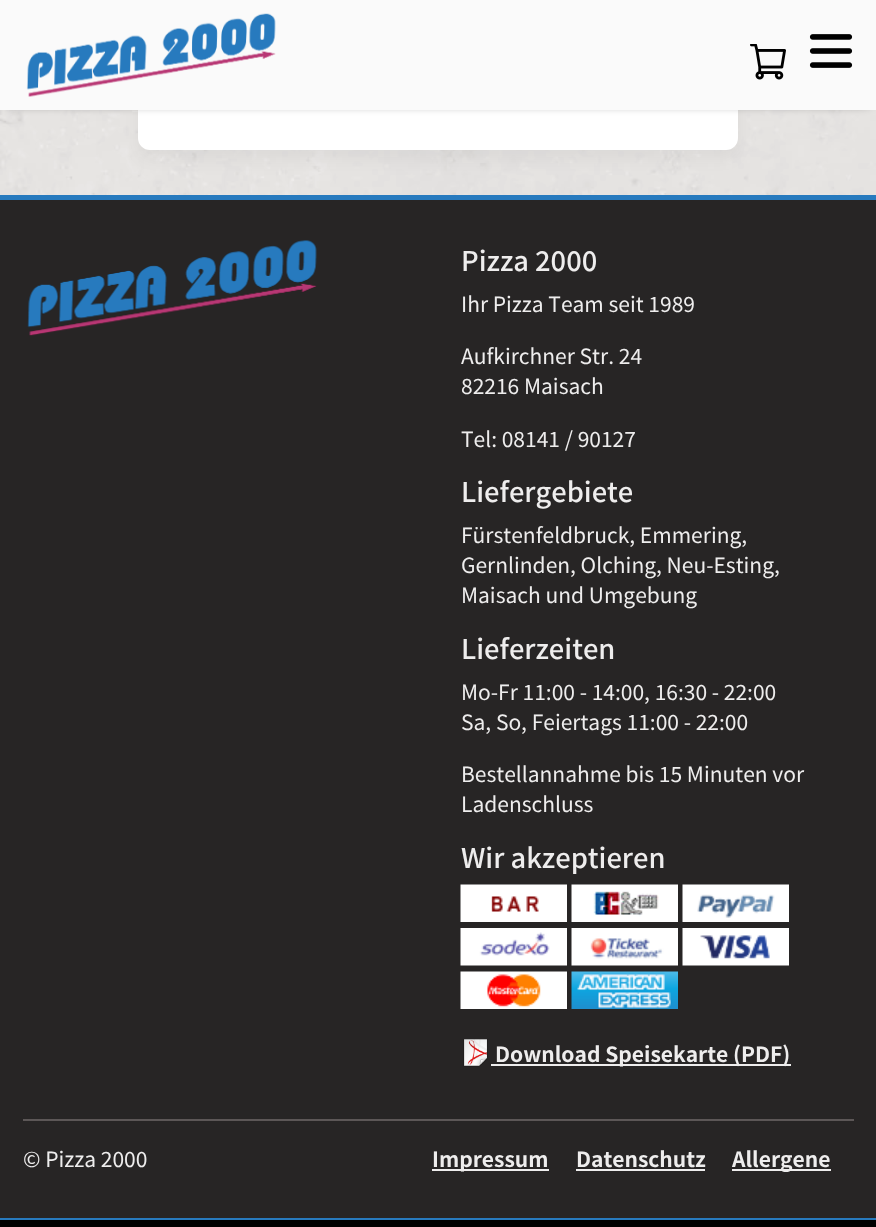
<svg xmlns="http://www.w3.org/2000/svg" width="876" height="1227">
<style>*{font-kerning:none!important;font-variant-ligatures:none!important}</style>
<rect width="100%" height="100%" fill="#fff"/>
<image x="0" y="110" width="876" height="85" href="media/1.png"/>
<rect x="138" y="-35" width="600" height="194" rx="12" fill="#0000000a" filter="blur(7.5px)"/>
<rect x="138" y="-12" width="600" height="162" rx="12" fill="#fff"/>
<rect x="8" y="8" width="861" height="94" fill="#000" filter="blur(6px)"/>
<rect width="876" height="110" fill="#fafafa"/>
<image x="26" y="13" width="250" height="84" href="media/2.png"/>
<image x="750" y="44" width="36" height="36" href="media/3.png"/>
<image x="809" y="34" width="44" height="34" href="media/4.png"/>
<rect y="200" width="876" height="1018" fill="#272525"/>
<rect y="195" width="876" height="5" fill="#277abe"/>
<image x="27" y="240" width="290" height="96" href="media/5.png"/>
<text x="461" y="271" style="font-family:Noto Sans JP;font-size:27.25px;font-weight:500;fill:#eeeded">Pizza 2000</text>
<text x="461" y="312" style="font-family:Noto Sans JP;font-size:21px;fill:#eeeded">Ihr Pizza Team seit 1989</text>
<text x="461" y="364" style="font-family:Noto Sans JP;font-size:21px;fill:#eeeded">Aufkirchner Str. 24</text>
<text x="461" y="394" style="font-family:Noto Sans JP;font-size:21px;fill:#eeeded">82216 Maisach</text>
<text x="461" y="447" style="font-family:Noto Sans JP;font-size:21px;fill:#eeeded">Tel: 08141 / 90127</text>
<text x="461" y="502" style="font-family:Noto Sans JP;font-size:27.25px;font-weight:500;fill:#eeeded">Liefergebiete</text>
<text x="461" y="543" style="font-family:Noto Sans JP;font-size:21px;fill:#eeeded">Fürstenfeldbruck, Emmering,</text>
<text x="461" y="573" style="font-family:Noto Sans JP;font-size:21px;fill:#eeeded">Gernlinden, Olching, Neu-Esting,</text>
<text x="461" y="603" style="font-family:Noto Sans JP;font-size:21px;fill:#eeeded">Maisach und Umgebung</text>
<text x="461" y="659" style="font-family:Noto Sans JP;font-size:27.25px;font-weight:500;fill:#eeeded">Lieferzeiten</text>
<text x="461" y="700" style="font-family:Noto Sans JP;font-size:21px;fill:#eeeded">Mo-Fr 11:00 - 14:00, 16:30 - 22:00</text>
<text x="461" y="730" style="font-family:Noto Sans JP;font-size:21px;fill:#eeeded">Sa, So, Feiertags 11:00 - 22:00</text>
<text x="461" y="782" style="font-family:Noto Sans JP;font-size:21px;fill:#eeeded">Bestellannahme bis 15 Minuten vor</text>
<text x="461" y="812" style="font-family:Noto Sans JP;font-size:21px;fill:#eeeded">Ladenschluss</text>
<text x="461" y="868" style="font-family:Noto Sans JP;font-size:27.25px;font-weight:500;fill:#eeeded">Wir akzeptieren</text>
<image x="460" y="884" width="107" height="38" href="media/6.png"/>
<image x="571" y="884" width="107" height="38" href="media/7.png"/>
<image x="682" y="884" width="107" height="38" href="media/8.png"/>
<image x="460" y="928" width="107" height="38" href="media/9.png"/>
<image x="571" y="928" width="107" height="38" href="media/10.png"/>
<image x="682" y="928" width="107" height="38" href="media/11.png"/>
<image x="460" y="971" width="107" height="38" href="media/12.png"/>
<image x="571" y="971" width="107" height="38" href="media/13.png"/>
<image x="463" y="1039" width="25" height="28" href="media/14.png"/>
<rect x="491" y="1064" width="300" height="2" fill="#eeeded"/>
<text x="495" y="1062" style="font-family:Noto Sans JP;font-size:21px;font-weight:bold;fill:#eeeded">Download Speisekarte (PDF)</text>
<rect x="23" y="1119" width="831" height="2" fill="#5c5757"/>
<text x="23" y="1167" style="font-family:Noto Sans JP;font-size:21px;fill:#eeeded">© Pizza 2000</text>
<rect x="432" y="1169" width="117" height="2" fill="#eeeded"/>
<text x="432" y="1167" style="font-family:Noto Sans JP;font-size:21px;font-weight:bold;fill:#eeeded">Impressum</text>
<text x="576" y="1167" style="font-family:Noto Sans JP;font-size:21px;font-weight:bold;fill:#eeeded">Datenschutz</text>
<rect x="576" y="1169" width="129" height="2" fill="#eeeded"/>
<rect x="732" y="1169" width="99" height="2" fill="#eeeded"/>
<text x="732" y="1167" style="font-family:Noto Sans JP;font-size:21px;font-weight:bold;fill:#eeeded">Allergene</text>
<rect y="1220" width="876" height="7" fill="#000"/>
<rect y="1218" width="876" height="2" fill="#277abe"/>
</svg>
